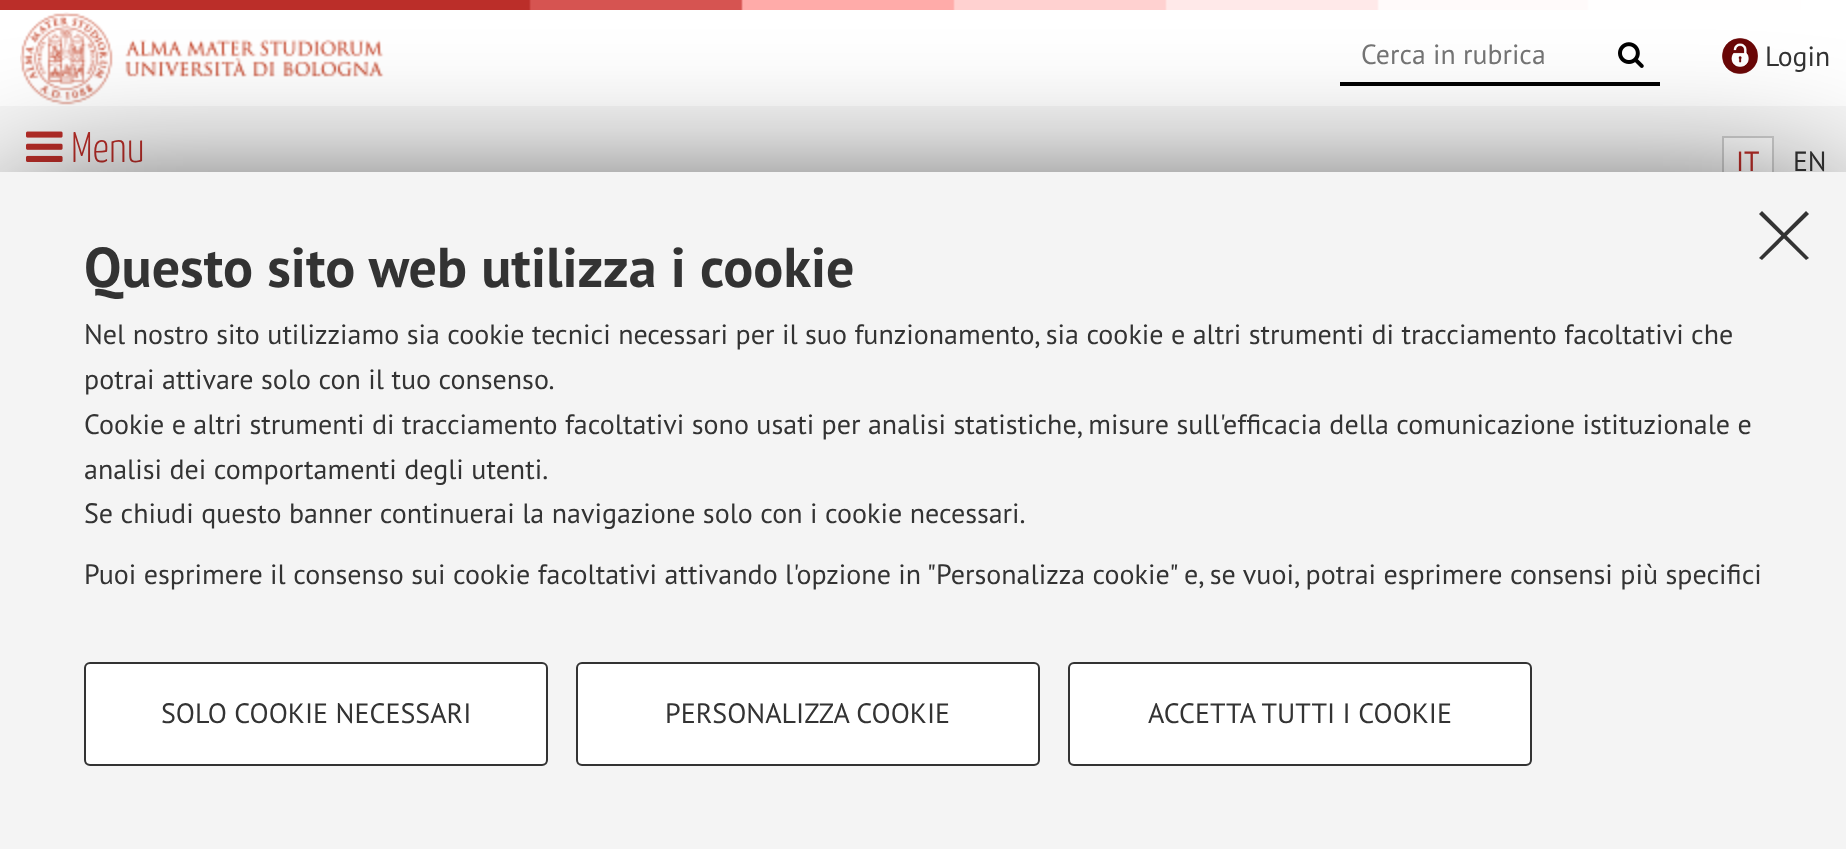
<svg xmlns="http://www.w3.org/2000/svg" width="1846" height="849">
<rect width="100%" height="100%" fill="#fff"/>
<image x="0" y="0" width="1846" height="10" href="media/1.png"/>
<image x="20" y="12" width="364" height="93" href="media/2.png"/>
<rect x="1340" y="82" width="320" height="4" fill="#000"/>
<text x="1361" y="64" style="font-family:PT Sans;font-size:27.75px;fill:#757575">Cerca in rubrica</text>
<image x="1618" y="42" width="26" height="26" href="media/3.png"/>
<image x="1722" y="38" width="36" height="36" href="media/4.png"/>
<text x="1765" y="66" style="font-family:PT Sans;font-size:27.75px;fill:#333">Login</text>
<rect y="106" width="1846" height="66" fill="#f7f7f7"/>
<image x="26" y="131" width="37" height="31" href="media/5.png"/>
<text x="71" y="162" style="font-family:Yanone Kaffeesatz;font-size:43px;font-weight:300;fill:#bb2e29">Menu</text>
<rect x="1724" y="138" width="48" height="34" fill="#fff"/>
<rect x="1722" y="136" width="52" height="2" fill="#d0d0d0"/>
<rect x="1772" y="136" width="2" height="36" fill="#d0d0d0"/>
<rect x="1722" y="136" width="2" height="36" fill="#d0d0d0"/>
<text x="1736" y="171" style="font-family:PT Sans;font-size:27.75px;fill:#bb2e29">IT</text>
<text x="1793" y="171" style="font-family:PT Sans;font-size:27.75px;fill:#333">EN</text>
<rect x="16" y="220" width="1814" height="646" fill="#000" filter="blur(80px)"/>
<rect y="172" width="1846" height="677" fill="#f4f4f4"/>
<path d="M1806 211l3 3l-47 46l-3-2z" fill="#333"/>
<path d="M1759 214l3-3l47 47l-3 2z" fill="#333"/>
<text x="84" y="287" style="font-family:PT Sans;font-size:56px;font-weight:bold;fill:#333">Questo sito web utilizza i cookie</text>
<text x="84" y="344" style="font-family:PT Sans;font-size:28px;fill:#333">Nel nostro sito utilizziamo sia cookie tecnici necessari per il suo funzionamento, sia cookie e altri strumenti di tracciamento facoltativi che</text>
<text x="84" y="389" style="font-family:PT Sans;font-size:28px;fill:#333">potrai attivare solo con il tuo consenso.</text>
<text x="84" y="434" style="font-family:PT Sans;font-size:28px;fill:#333">Cookie e altri strumenti di tracciamento facoltativi sono usati per analisi statistiche, misure sull'efficacia della comunicazione istituzionale e</text>
<text x="84" y="479" style="font-family:PT Sans;font-size:28px;fill:#333">analisi dei comportamenti degli utenti.</text>
<text x="84" y="523" style="font-family:PT Sans;font-size:28px;fill:#333">Se chiudi questo banner continuerai la navigazione solo con i cookie necessari.</text>
<text x="84" y="584" style="font-family:PT Sans;font-size:28px;fill:#333">Puoi esprimere il consenso sui cookie facoltativi attivando l'opzione in "Personalizza cookie" e, se vuoi, potrai esprimere consensi più specifici</text>
<rect x="85" y="663" width="462" height="102" rx="5" fill="#fff" stroke="#333" stroke-width="2"/>
<text x="161" y="723" style="font-family:PT Sans;font-size:28px;fill:#333">SOLO COOKIE NECESSARI</text>
<rect x="577" y="663" width="462" height="102" rx="5" fill="#fff" stroke="#333" stroke-width="2"/>
<text x="665" y="723" style="font-family:PT Sans;font-size:28px;fill:#333">PERSONALIZZA COOKIE</text>
<rect x="1069" y="663" width="462" height="102" rx="5" fill="#fff" stroke="#333" stroke-width="2"/>
<text x="1148" y="723" style="font-family:PT Sans;font-size:28px;fill:#333">ACCETTA TUTTI I COOKIE</text>
</svg>
